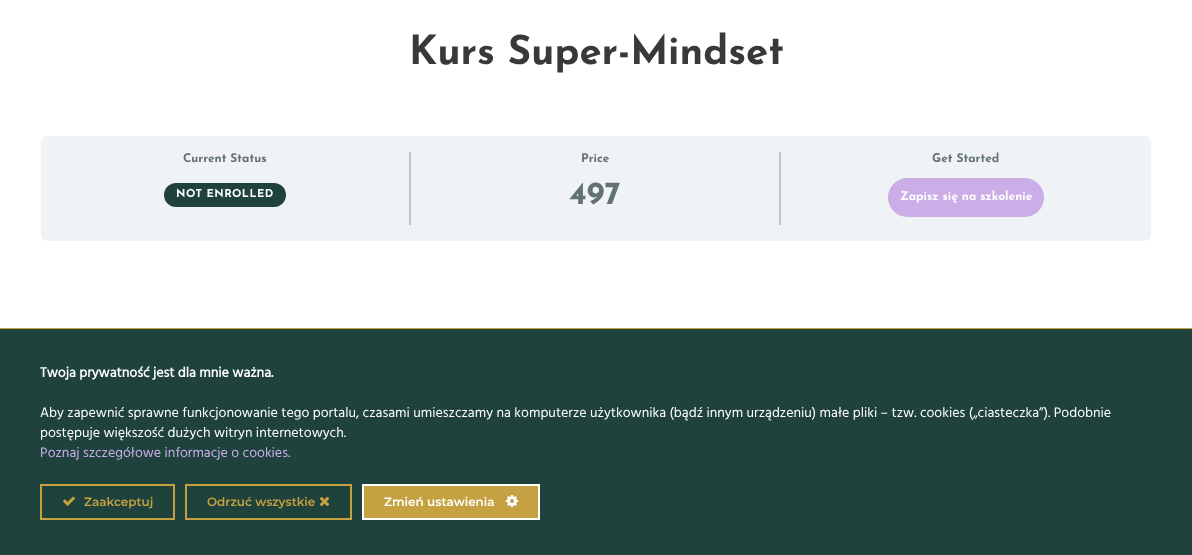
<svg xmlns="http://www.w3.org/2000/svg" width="1192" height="555">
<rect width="100%" height="100%" fill="#fff"/>
<text x="409" y="64" style="font-family:Josefin Sans;font-size:40px;font-weight:bold;fill:#393939">Kurs Super-Mindset</text>
<rect x="41" y="136" width="1110" height="105" rx="6" fill="#f0f3f6"/>
<rect x="409" y="152" width="2" height="73" fill="#bec5cb"/>
<text x="183" y="162" style="font-family:Josefin Sans;font-size:12px;font-weight:bold;fill:#617175">Current Status</text>
<rect x="164" y="183" width="122" height="24" rx="12" fill="#1f423c"/>
<text x="176" y="197" style="font-family:Josefin Sans;font-size:11px;font-weight:bold;letter-spacing:0.5px;fill:#fff">NOT ENROLLED</text>
<rect x="779" y="152" width="2" height="73" fill="#bec5cb"/>
<text x="581" y="162" style="font-family:Josefin Sans;font-size:12px;font-weight:bold;fill:#617175">Price</text>
<text x="569" y="204" style="font-family:Josefin Sans;font-size:32px;font-weight:bold;fill:#617175">497</text>
<text x="932" y="162" style="font-family:Josefin Sans;font-size:12px;font-weight:bold;fill:#617175">Get Started</text>
<rect x="888" y="178" width="156" height="39" rx="19.5" fill="#cbade8"/>
<text x="900" y="200" style="font-family:Josefin Sans;font-size:12px;font-weight:bold;fill:#fff">Zapisz się na szkolenie</text>
<rect y="329" width="1192" height="226" fill="#1f423c"/>
<rect y="328" width="1192" height="1" fill="#c5a141"/>
<text x="40" y="377" style="font-family:Hind;font-size:14px;font-weight:bold;fill:#fff">Twoja prywatność jest dla mnie ważna.</text>
<text x="40" y="417" style="font-family:Hind;font-size:14px;fill:#fff">Aby zapewnić sprawne funkcjonowanie tego portalu, czasami umieszczamy na komputerze użytkownika (bądź innym urządzeniu) małe pliki – tzw. cookies („ciasteczka”). Podobnie</text>
<text x="40" y="437" style="font-family:Hind;font-size:14px;fill:#fff">postępuje większość dużych witryn internetowych.</text>
<text x="40" y="457" style="font-family:Hind;font-size:14px;fill:#cbade8">Poznaj szczegółowe informacje o cookies.</text>
<rect x="41" y="485" width="133" height="34" fill="none" stroke="#c5a141" stroke-width="2"/>
<image x="63" y="496" width="12" height="10" href="media/1.png"/>
<text x="84" y="506" style="font-family:Montserrat;font-size:12px;font-weight:600;fill:#c5a141">Zaakceptuj</text>
<rect x="186" y="485" width="165" height="34" fill="none" stroke="#c5a141" stroke-width="2"/>
<text x="207" y="506" style="font-family:Montserrat;font-size:12px;font-weight:600;fill:#c5a141">Odrzuć wszystkie</text>
<image x="319" y="496" width="11" height="11" href="media/2.png"/>
<rect x="363" y="485" width="176" height="34" fill="#c5a141" stroke="#fff" stroke-width="2"/>
<text x="384" y="506" style="font-family:Montserrat;font-size:12px;font-weight:600;fill:#fff">Zmień ustawienia</text>
<image x="506" y="495" width="12" height="12" href="media/3.png"/>
</svg>
